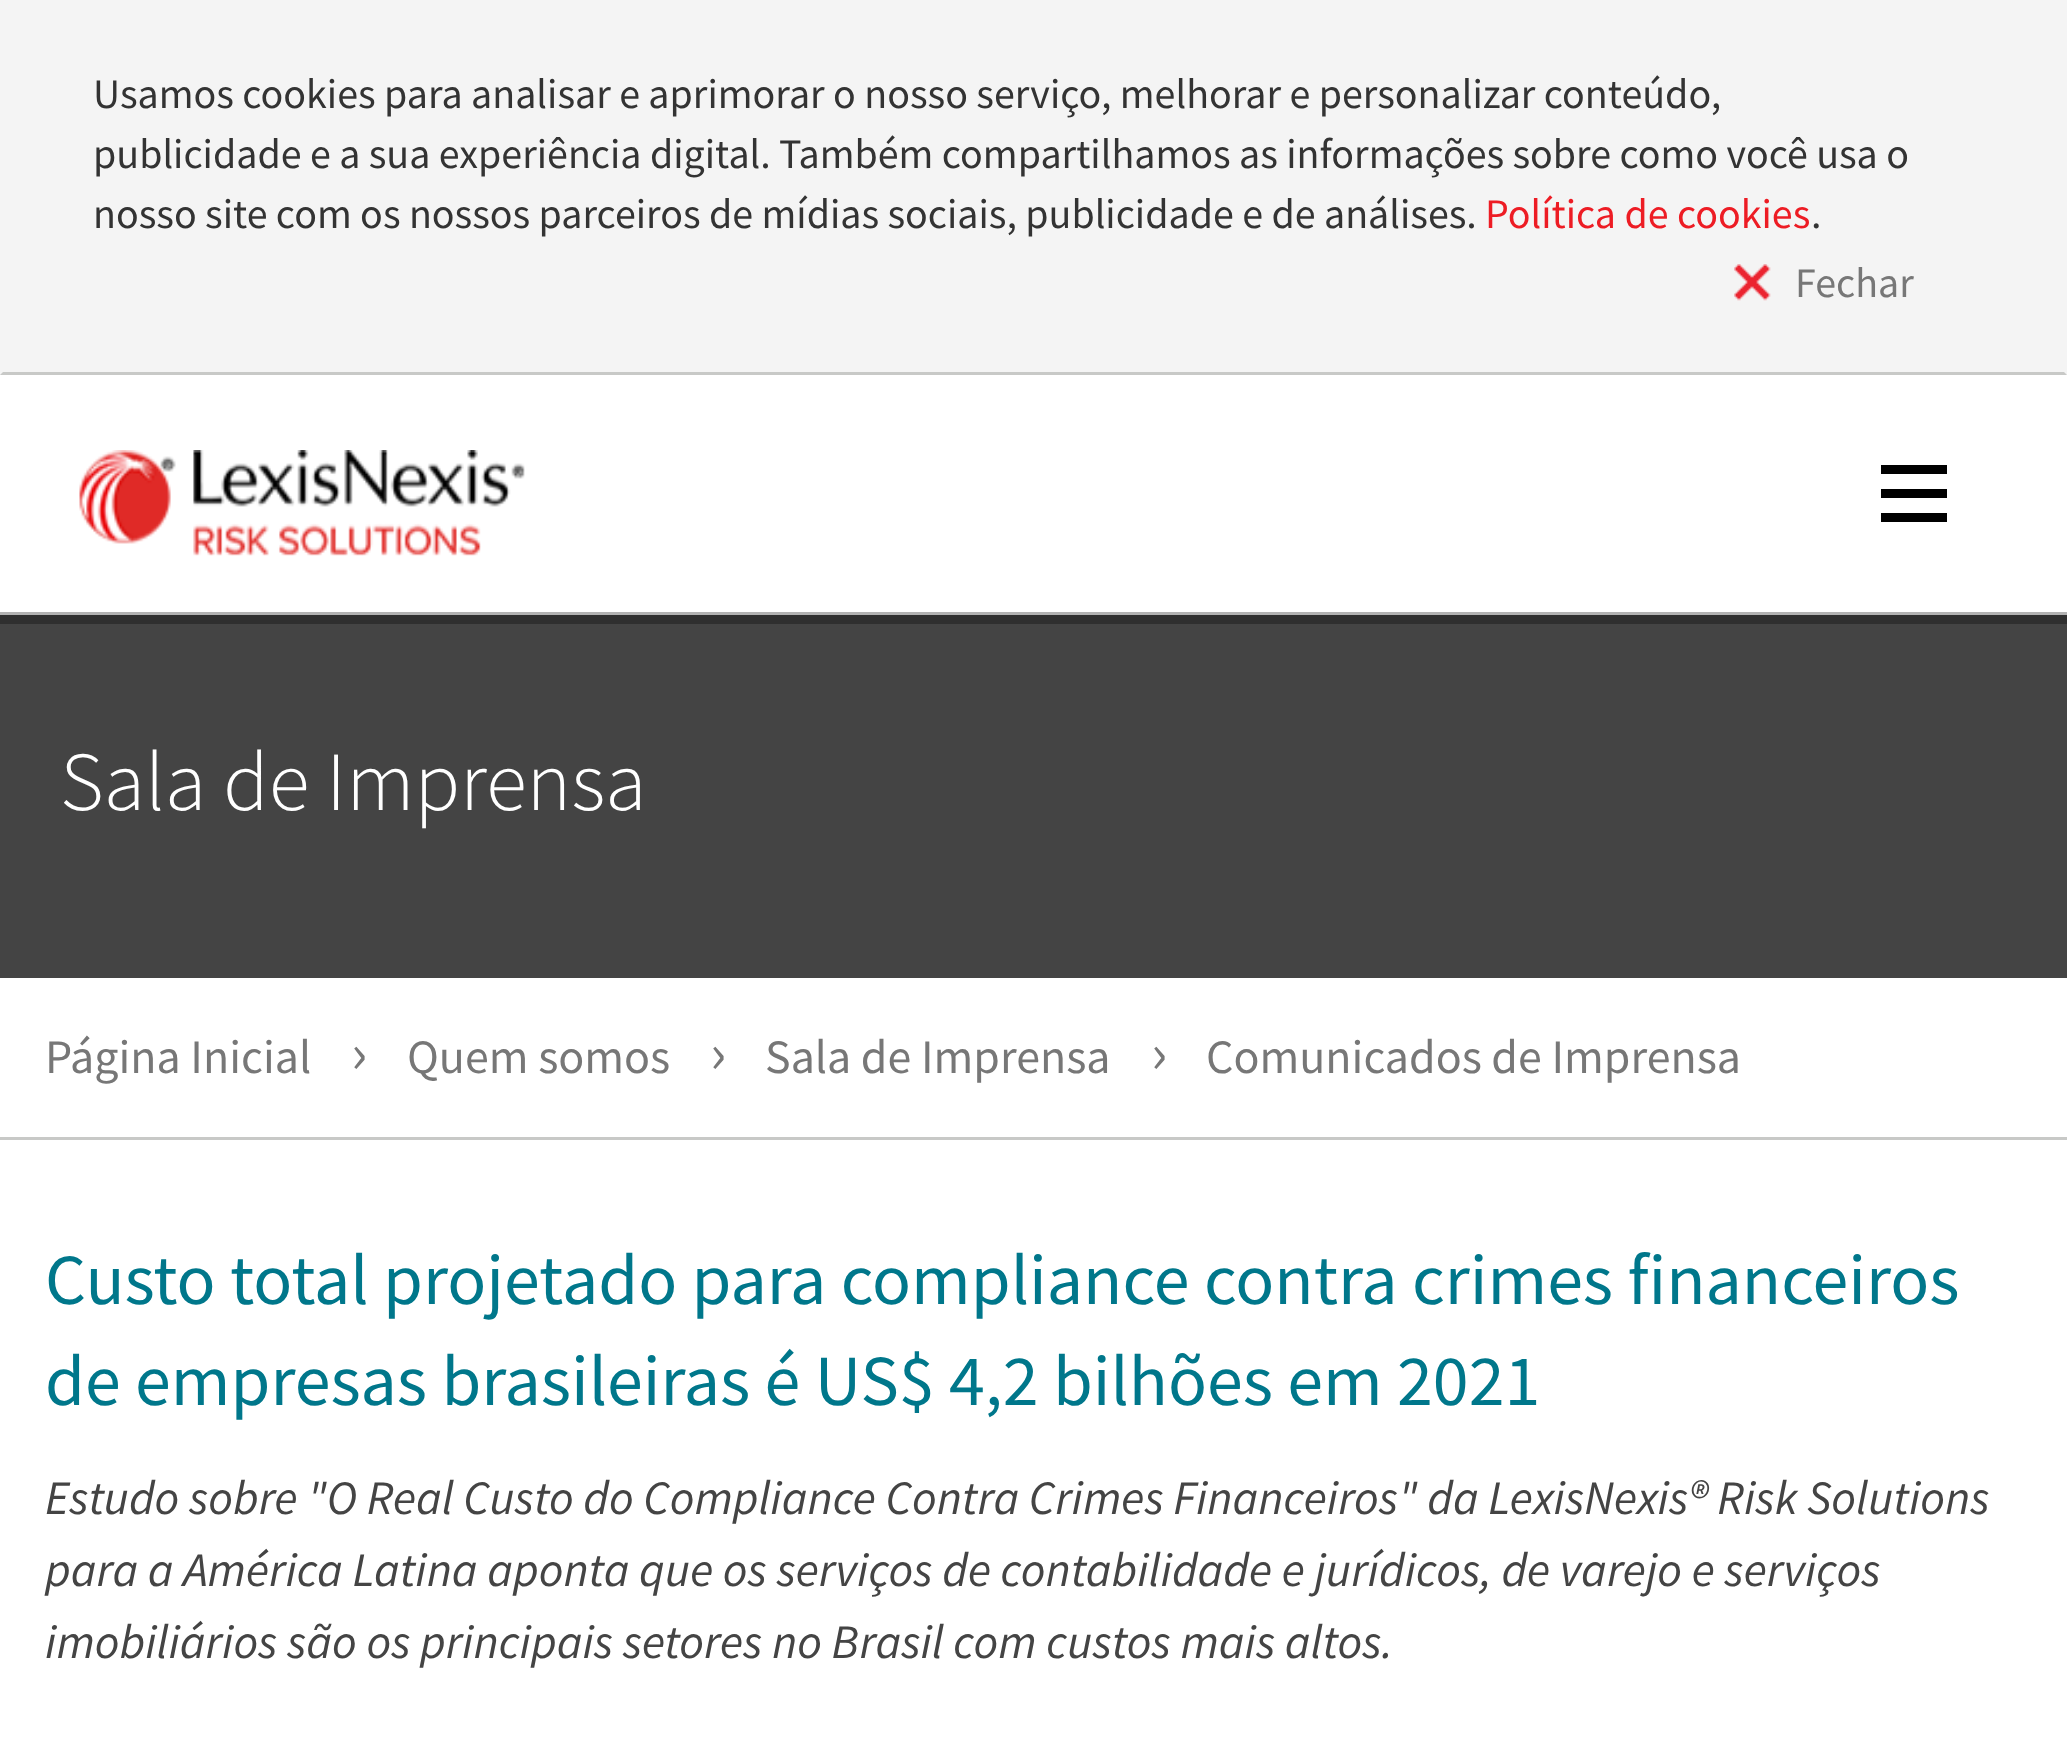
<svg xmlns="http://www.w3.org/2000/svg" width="2067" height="1742">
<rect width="100%" height="100%" fill="#fff"/>
<rect y="615" width="2067" height="363" fill="#444"/>
<rect x="-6" y="-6" width="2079" height="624" fill="none" stroke="#0000004d" stroke-width="12"/>
<rect width="2067" height="375" fill="#f4f4f4"/>
<path d="M2067 375h-2067l3-3h2061z" fill="#c8c9c7"/>
<text x="93" y="108" style="font-family:Source Sans Pro;font-size:42px;fill:#333">Usamos cookies para analisar e aprimorar o nosso serviço, melhorar e personalizar conteúdo,</text>
<text x="93" y="168" style="font-family:Source Sans Pro;font-size:42px;fill:#333">publicidade e a sua experiência digital. Também compartilhamos as informações sobre como você usa o</text>
<text x="93" y="228" style="font-family:Source Sans Pro;font-size:42px;fill:#333">nosso site com os nossos parceiros de mídias sociais, publicidade e de análises.</text>
<text x="1485" y="228" style="font-family:Source Sans Pro;font-size:42px;fill:#ed1c24">Política de cookies</text>
<text x="1811" y="228" style="font-family:Source Sans Pro;font-size:42px;fill:#333">.</text>
<image x="1734" y="264" width="37" height="37" href="media/1.png"/>
<text x="1795" y="297" style="font-family:Source Sans Pro;font-size:42px;fill:#777">Fechar</text>
<image x="79" y="450" width="446" height="106" href="media/2.png"/>
<rect x="1881" y="465" width="66" height="9" fill="#000"/>
<rect x="1881" y="489" width="66" height="9" fill="#000"/>
<rect x="1881" y="513" width="66" height="9" fill="#000"/>
<text x="60" y="810" style="font-family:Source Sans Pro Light;font-size:84px;font-weight:300;fill:#fff">Sala de Imprensa</text>
<text x="45" y="1073" style="font-family:Source Sans Pro;font-size:48px;fill:#777">Página Inicial</text>
<text x="351" y="1073" style="font-family:Source Sans Pro;font-size:60px;fill:#777">›</text>
<text x="407" y="1073" style="font-family:Source Sans Pro;font-size:48px;fill:#777">Quem somos</text>
<text x="710" y="1073" style="font-family:Source Sans Pro;font-size:60px;fill:#777">›</text>
<text x="765" y="1073" style="font-family:Source Sans Pro;font-size:48px;fill:#777">Sala de Imprensa</text>
<text x="1151" y="1073" style="font-family:Source Sans Pro;font-size:60px;fill:#777">›</text>
<text x="1206" y="1073" style="font-family:Source Sans Pro;font-size:48px;fill:#777">Comunicados de Imprensa</text>
<rect y="1137" width="2067" height="3" fill="#c8c9c7"/>
<text x="45" y="1304" style="font-family:Source Sans Pro;font-size:72px;fill:#00778b">Custo total projetado para compliance contra crimes financeiros</text>
<text x="45" y="1405" style="font-family:Source Sans Pro;font-size:72px;fill:#00778b">de empresas brasileiras é US$ 4,2 bilhões em 2021</text>
<text x="45" y="1514" style="font-family:Source Sans Pro;font-size:48px;font-style:italic;fill:#444">Estudo sobre "O Real Custo do Compliance Contra Crimes Financeiros" da LexisNexis® Risk Solutions</text>
<text x="45" y="1586" style="font-family:Source Sans Pro;font-size:48px;font-style:italic;fill:#444">para a América Latina aponta que os serviços de contabilidade e jurídicos, de varejo e serviços</text>
<text x="45" y="1658" style="font-family:Source Sans Pro;font-size:48px;font-style:italic;fill:#444">imobiliários são os principais setores no Brasil com custos mais altos.</text>
</svg>
